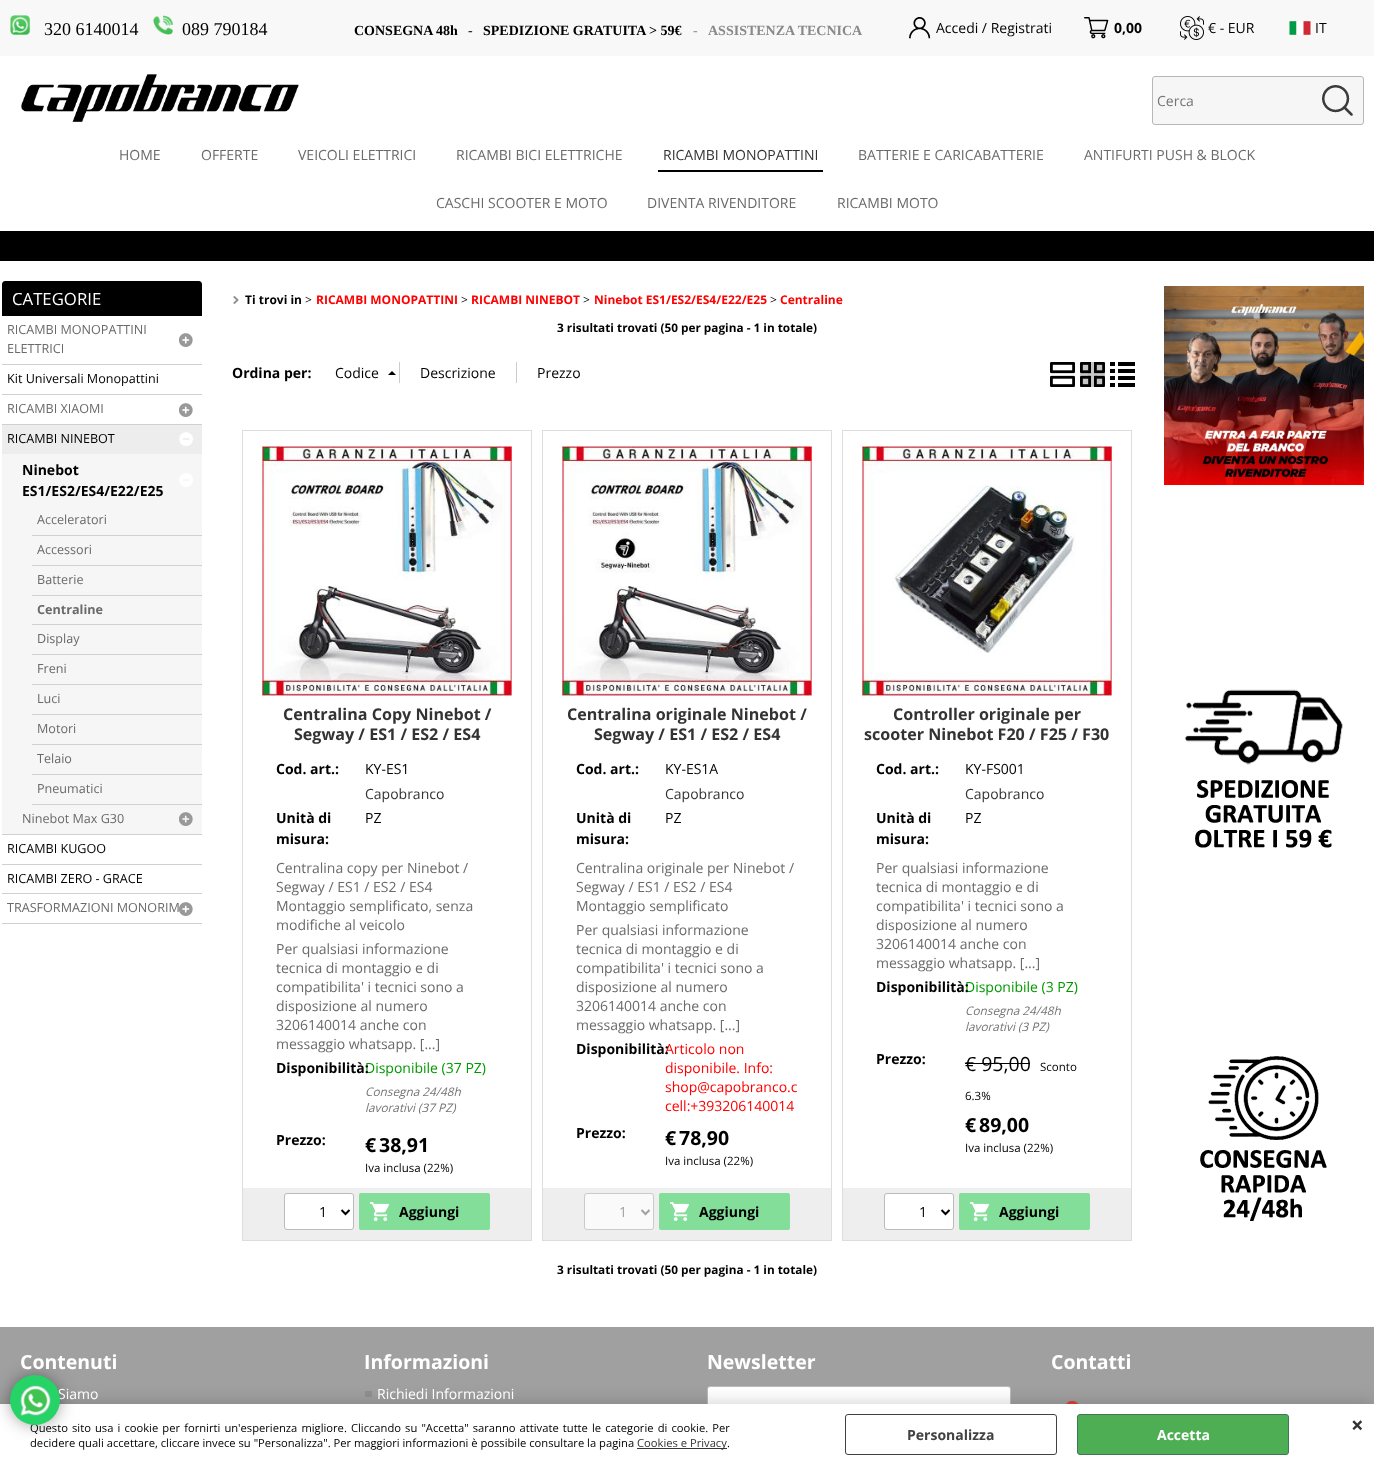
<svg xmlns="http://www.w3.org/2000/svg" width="1374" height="1465">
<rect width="100%" height="100%" fill="#fff"/>
<rect width="1374" height="56" fill="#f8f8f8"/>
<image x="10" y="15" width="20" height="20" href="media/1.png"/>
<text x="44" y="35" style="font-family:Liberation Serif;font-size:18px;fill:#000">320 6140014</text>
<image x="153" y="15" width="20" height="20" href="media/2.png"/>
<text x="182" y="35" style="font-family:Liberation Serif;font-size:18px;fill:#000">089 790184</text>
<text x="354" y="35" style="font-family:Liberation Serif;font-size:14px;font-weight:bold;fill:#000">CONSEGNA 48h</text>
<text x="468" y="35" style="font-family:Liberation Serif;font-size:14px;fill:#000">-</text>
<text x="483" y="35" style="font-family:Liberation Serif;font-size:14px;font-weight:bold;fill:#000">SPEDIZIONE GRATUITA &gt; 59€</text>
<text x="693" y="35" style="font-family:Liberation Serif;font-size:14px;fill:#898989">-</text>
<text x="708" y="35" style="font-family:Liberation Serif;font-size:14px;font-weight:bold;fill:#898989">ASSISTENZA TECNICA</text>
<image x="909" y="17" width="22" height="22" href="media/3.png"/>
<text x="936" y="33" style="font-family:Open Sans;font-size:14px;fill:#000">Accedi / Registrati</text>
<image x="1084" y="17" width="25" height="22" href="media/4.png"/>
<text x="1114" y="33" style="font-family:Open Sans;font-size:14px;font-weight:bold;fill:#000">0,00</text>
<image x="1180" y="16" width="24" height="24" href="media/5.png"/>
<text x="1208" y="33" style="font-family:Open Sans;font-size:14px;fill:#000">€ - EUR</text>
<image x="1289" y="21" width="22" height="14" href="media/6.png"/>
<text x="1315" y="33" style="font-family:Open Sans;font-size:14px;fill:#000">IT</text>
<image x="21" y="74" width="278" height="48" href="media/7.png"/>
<rect x="1152.5" y="76.5" width="211" height="48" rx="2.5" fill="#f6f6f6" stroke="#b7b7b7"/>
<text x="1157" y="106" style="font-family:Open Sans;font-size:14px;fill:#757575">Cerca</text>
<image x="1322" y="85" width="31" height="31" href="media/8.png"/>
<text x="119" y="160" style="font-family:Open Sans;font-size:14px;fill:#6b6969">HOME</text>
<text x="201" y="160" style="font-family:Open Sans;font-size:14px;fill:#6b6969">OFFERTE</text>
<text x="298" y="160" style="font-family:Open Sans;font-size:14px;fill:#6b6969">VEICOLI ELETTRICI</text>
<text x="456" y="160" style="font-family:Open Sans;font-size:14px;fill:#6b6969">RICAMBI BICI ELETTRICHE</text>
<rect x="658" y="170" width="165" height="2" fill="#000"/>
<text x="663" y="160" style="font-family:Open Sans;font-size:14px;fill:#333">RICAMBI MONOPATTINI</text>
<text x="858" y="160" style="font-family:Open Sans;font-size:14px;fill:#6b6969">BATTERIE E CARICABATTERIE</text>
<text x="1084" y="160" style="font-family:Open Sans;font-size:14px;fill:#6b6969">ANTIFURTI PUSH &amp; BLOCK</text>
<text x="436" y="208" style="font-family:Open Sans;font-size:14px;fill:#6b6969">CASCHI SCOOTER E MOTO</text>
<text x="647" y="208" style="font-family:Open Sans;font-size:14px;fill:#6b6969">DIVENTA RIVENDITORE</text>
<text x="837" y="208" style="font-family:Open Sans;font-size:14px;fill:#6b6969">RICAMBI MOTO</text>
<rect y="231" width="1374" height="30" fill="#000"/>
<path d="M5 281h194c1.5 0 3 1.5 3 3v32h-200v-32c0-1.5 1.5-3 3-3z" fill="#000"/>
<text x="12" y="305" style="font-family:Open Sans;font-size:16.75px;fill:#fff">CATEGORIE</text>
<rect x="2" y="364" width="200" height="1" fill="#d0d0d0"/>
<image x="179" y="333" width="14" height="14" href="media/9.png"/>
<text x="7" y="334" style="font-family:Open Sans;font-size:12.6px;fill:#6b6969">RICAMBI MONOPATTINI</text>
<text x="7" y="353" style="font-family:Open Sans;font-size:12.6px;fill:#6b6969">ELETTRICI</text>
<rect x="2" y="394" width="200" height="1" fill="#d0d0d0"/>
<text x="7" y="383" style="font-family:Open Sans;font-size:12.6px;fill:#000">Kit Universali Monopattini</text>
<rect x="2" y="424" width="200" height="1" fill="#d0d0d0"/>
<image x="179" y="403" width="14" height="14" href="media/9.png"/>
<text x="7" y="413" style="font-family:Open Sans;font-size:12.6px;fill:#6b6969">RICAMBI XIAOMI</text>
<rect x="2" y="834" width="200" height="1" fill="#d0d0d0"/>
<rect x="2" y="425" width="200" height="29" fill="#ededed"/>
<image x="179" y="432" width="14" height="14" href="media/10.png"/>
<text x="7" y="443" style="font-family:Open Sans;font-size:12.6px;fill:#000">RICAMBI NINEBOT</text>
<rect x="2" y="454" width="200" height="380" fill="#f6f6f6"/>
<image x="179" y="473" width="14" height="14" href="media/11.png"/>
<text x="22" y="475" style="font-family:Open Sans;font-size:14px;font-weight:bold;fill:#000">Ninebot</text>
<text x="22" y="496" style="font-family:Open Sans;font-size:14px;font-weight:bold;fill:#000">ES1/ES2/ES4/E22/E25</text>
<rect x="32" y="535" width="170" height="1" fill="#d0d0d0"/>
<text x="37" y="524" style="font-family:Open Sans;font-size:12.6px;fill:#6b6969">Acceleratori</text>
<rect x="32" y="565" width="170" height="1" fill="#d0d0d0"/>
<text x="37" y="554" style="font-family:Open Sans;font-size:12.6px;fill:#6b6969">Accessori</text>
<rect x="32" y="595" width="170" height="1" fill="#d0d0d0"/>
<text x="37" y="584" style="font-family:Open Sans;font-size:12.6px;fill:#6b6969">Batterie</text>
<rect x="32" y="624" width="170" height="1" fill="#d0d0d0"/>
<text x="37" y="614" style="font-family:Open Sans;font-size:12.6px;font-weight:bold;fill:#6b6969">Centraline</text>
<rect x="32" y="654" width="170" height="1" fill="#d0d0d0"/>
<text x="37" y="643" style="font-family:Open Sans;font-size:12.6px;fill:#6b6969">Display</text>
<rect x="32" y="684" width="170" height="1" fill="#d0d0d0"/>
<text x="37" y="673" style="font-family:Open Sans;font-size:12.6px;fill:#6b6969">Freni</text>
<rect x="32" y="714" width="170" height="1" fill="#d0d0d0"/>
<text x="37" y="703" style="font-family:Open Sans;font-size:12.6px;fill:#6b6969">Luci</text>
<rect x="32" y="744" width="170" height="1" fill="#d0d0d0"/>
<text x="37" y="733" style="font-family:Open Sans;font-size:12.6px;fill:#6b6969">Motori</text>
<rect x="32" y="774" width="170" height="1" fill="#d0d0d0"/>
<text x="37" y="763" style="font-family:Open Sans;font-size:12.6px;fill:#6b6969">Telaio</text>
<rect x="32" y="804" width="170" height="1" fill="#d0d0d0"/>
<text x="37" y="793" style="font-family:Open Sans;font-size:12.6px;fill:#6b6969">Pneumatici</text>
<image x="179" y="812" width="14" height="14" href="media/12.png"/>
<text x="22" y="823" style="font-family:Open Sans;font-size:12.6px;fill:#6b6969">Ninebot Max G30</text>
<rect x="2" y="864" width="200" height="1" fill="#d0d0d0"/>
<text x="7" y="853" style="font-family:Open Sans;font-size:12.6px;fill:#000">RICAMBI KUGOO</text>
<rect x="2" y="893" width="200" height="1" fill="#d0d0d0"/>
<text x="7" y="883" style="font-family:Open Sans;font-size:12.6px;fill:#000">RICAMBI ZERO - GRACE</text>
<rect x="2" y="923" width="200" height="1" fill="#d0d0d0"/>
<image x="179" y="902" width="14" height="14" href="media/9.png"/>
<text x="7" y="912" style="font-family:Open Sans;font-size:12.6px;fill:#6b6969">TRASFORMAZIONI MONORIM</text>
<image x="233" y="296" width="6" height="8" href="media/13.png"/>
<text x="245" y="304" style="font-family:Open Sans;font-size:12px;font-weight:bold;fill:#000">Ti trovi in</text>
<text x="305" y="304" style="font-family:Open Sans;font-size:12px;fill:#000">&gt;</text>
<text x="316" y="304" style="font-family:Open Sans;font-size:12px;font-weight:bold;fill:#f00">RICAMBI MONOPATTINI</text>
<text x="461" y="304" style="font-family:Open Sans;font-size:12px;fill:#000">&gt;</text>
<text x="471" y="304" style="font-family:Open Sans;font-size:12px;font-weight:bold;fill:#f00">RICAMBI NINEBOT</text>
<text x="583" y="304" style="font-family:Open Sans;font-size:12px;fill:#000">&gt;</text>
<text x="594" y="304" style="font-family:Open Sans;font-size:12px;font-weight:bold;fill:#f00">Ninebot ES1/ES2/ES4/E22/E25</text>
<text x="770" y="304" style="font-family:Open Sans;font-size:12px;fill:#000">&gt;</text>
<text x="780" y="304" style="font-family:Open Sans;font-size:12px;font-weight:bold;fill:#f00">Centraline</text>
<text x="557" y="332" style="font-family:Open Sans;font-size:11.8px;font-weight:bold;fill:#000">3 risultati trovati (50 per pagina - 1 in totale)</text>
<text x="232" y="378" style="font-family:Open Sans;font-size:14px;font-weight:bold;fill:#000">Ordina per:</text>
<image x="388" y="371" width="8" height="4" href="media/14.png"/>
<rect x="399" y="362" width="1" height="21" fill="#ccc"/>
<text x="335" y="378" style="font-family:Open Sans;font-size:14px;fill:#000">Codice</text>
<rect x="516" y="362" width="1" height="21" fill="#ccc"/>
<text x="420" y="378" style="font-family:Open Sans;font-size:14px;fill:#000">Descrizione</text>
<text x="537" y="378" style="font-family:Open Sans;font-size:14px;fill:#000">Prezzo</text>
<image x="1050" y="362" width="25" height="25" href="media/15.png"/>
<rect x="1080" y="362" width="25" height="25" fill="#c6c6c6"/>
<image x="1080" y="362" width="25" height="25" href="media/16.png"/>
<image x="1110" y="362" width="25" height="25" href="media/17.png"/>
<rect x="242.5" y="430.5" width="289" height="810" fill="none" stroke="#ddd"/>
<image x="262" y="446" width="250" height="250" href="media/18.png"/>
<text x="283" y="720" style="font-family:Open Sans;font-size:16.1px;font-weight:bold;fill:#333">Centralina Copy Ninebot /</text>
<text x="294" y="740" style="font-family:Open Sans;font-size:16.1px;font-weight:bold;fill:#333">Segway / ES1 / ES2 / ES4</text>
<text x="276" y="774" style="font-family:Open Sans;font-size:14px;font-weight:bold;fill:#000">Cod. art.:</text>
<text x="365" y="774" style="font-family:Open Sans;font-size:14px;fill:#000">KY-ES1</text>
<text x="365" y="799" style="font-family:Open Sans;font-size:14px;fill:#333">Capobranco</text>
<text x="276" y="823" style="font-family:Open Sans;font-size:14px;font-weight:bold;fill:#000">Unità di</text>
<text x="276" y="844" style="font-family:Open Sans;font-size:14px;font-weight:bold;fill:#000">misura:</text>
<text x="365" y="823" style="font-family:Open Sans;font-size:14px;fill:#000">PZ</text>
<text x="276" y="873" style="font-family:Open Sans;font-size:14px;fill:#6b6969">Centralina copy per Ninebot /</text>
<text x="276" y="892" style="font-family:Open Sans;font-size:14px;fill:#6b6969">Segway / ES1 / ES2 / ES4</text>
<text x="276" y="911" style="font-family:Open Sans;font-size:14px;fill:#6b6969">Montaggio semplificato, senza</text>
<text x="276" y="930" style="font-family:Open Sans;font-size:14px;fill:#6b6969">modifiche al veicolo</text>
<text x="276" y="954" style="font-family:Open Sans;font-size:14px;fill:#6b6969">Per qualsiasi informazione</text>
<text x="276" y="973" style="font-family:Open Sans;font-size:14px;fill:#6b6969">tecnica di montaggio e di</text>
<text x="276" y="992" style="font-family:Open Sans;font-size:14px;fill:#6b6969">compatibilita' i tecnici sono a</text>
<text x="276" y="1011" style="font-family:Open Sans;font-size:14px;fill:#6b6969">disposizione al numero</text>
<text x="276" y="1030" style="font-family:Open Sans;font-size:14px;fill:#6b6969">3206140014 anche con</text>
<text x="276" y="1049" style="font-family:Open Sans;font-size:14px;fill:#6b6969">messaggio whatsapp. [...]</text>
<text x="365" y="1073" style="font-family:Open Sans;font-size:14px;fill:#090">Disponibile (37 PZ)</text>
<text x="276" y="1073" style="font-family:Open Sans;font-size:14px;font-weight:bold;fill:#000">Disponibilità:</text>
<text x="365" y="1096" style="font-family:Open Sans;font-size:11.8px;font-style:italic;fill:#757575">Consegna 24/48h</text>
<text x="365" y="1112" style="font-family:Open Sans;font-size:11.8px;font-style:italic;fill:#757575">lavorativi (37 PZ)</text>
<text x="276" y="1145" style="font-family:Open Sans;font-size:14px;font-weight:bold;fill:#000">Prezzo:</text>
<text x="365" y="1152" style="font-family:Open Sans;font-size:19.5px;font-weight:bold;fill:#000">€</text>
<text x="379" y="1152" style="font-family:Open Sans;font-size:19.5px;font-weight:bold;fill:#000">38,91</text>
<text x="365" y="1172" style="font-family:Open Sans;font-size:11.5px;fill:#000">Iva inclusa (22%)</text>
<rect x="243" y="1188" width="288" height="52" fill="#eee"/>
<rect x="284.5" y="1193.5" width="69" height="36" rx="2.5" fill="#fff" stroke="#bbb"/>
<path d="M341.5 1210l4 4l4-4" fill="none" stroke="#000" stroke-width="2"/>
<text x="319" y="1217" style="font-family:Open Sans;font-size:14px;fill:#000">1</text>
<rect x="359" y="1193" width="131" height="37" rx="2" fill="#82de99"/>
<image x="370" y="1202" width="19" height="19" href="media/19.png"/>
<text x="399" y="1217" style="font-family:Open Sans;font-size:14px;font-weight:bold;fill:#000">Aggiungi</text>
<rect x="542.5" y="430.5" width="289" height="810" fill="none" stroke="#ddd"/>
<image x="562" y="446" width="250" height="250" href="media/20.png"/>
<text x="567" y="720" style="font-family:Open Sans;font-size:16.1px;font-weight:bold;fill:#333">Centralina originale Ninebot /</text>
<text x="594" y="740" style="font-family:Open Sans;font-size:16.1px;font-weight:bold;fill:#333">Segway / ES1 / ES2 / ES4</text>
<text x="576" y="774" style="font-family:Open Sans;font-size:14px;font-weight:bold;fill:#000">Cod. art.:</text>
<text x="665" y="774" style="font-family:Open Sans;font-size:14px;fill:#000">KY-ES1A</text>
<text x="665" y="799" style="font-family:Open Sans;font-size:14px;fill:#333">Capobranco</text>
<text x="576" y="823" style="font-family:Open Sans;font-size:14px;font-weight:bold;fill:#000">Unità di</text>
<text x="576" y="844" style="font-family:Open Sans;font-size:14px;font-weight:bold;fill:#000">misura:</text>
<text x="665" y="823" style="font-family:Open Sans;font-size:14px;fill:#000">PZ</text>
<text x="576" y="873" style="font-family:Open Sans;font-size:14px;fill:#6b6969">Centralina originale per Ninebot /</text>
<text x="576" y="892" style="font-family:Open Sans;font-size:14px;fill:#6b6969">Segway / ES1 / ES2 / ES4</text>
<text x="576" y="911" style="font-family:Open Sans;font-size:14px;fill:#6b6969">Montaggio semplificato</text>
<text x="576" y="935" style="font-family:Open Sans;font-size:14px;fill:#6b6969">Per qualsiasi informazione</text>
<text x="576" y="954" style="font-family:Open Sans;font-size:14px;fill:#6b6969">tecnica di montaggio e di</text>
<text x="576" y="973" style="font-family:Open Sans;font-size:14px;fill:#6b6969">compatibilita' i tecnici sono a</text>
<text x="576" y="992" style="font-family:Open Sans;font-size:14px;fill:#6b6969">disposizione al numero</text>
<text x="576" y="1011" style="font-family:Open Sans;font-size:14px;fill:#6b6969">3206140014 anche con</text>
<text x="576" y="1030" style="font-family:Open Sans;font-size:14px;fill:#6b6969">messaggio whatsapp. [...]</text>
<text x="665" y="1054" style="font-family:Open Sans;font-size:14px;fill:#f00">Articolo non</text>
<text x="576" y="1054" style="font-family:Open Sans;font-size:14px;font-weight:bold;fill:#000">Disponibilità:</text>
<text x="665" y="1073" style="font-family:Open Sans;font-size:14px;fill:#f00">disponibile. Info:</text>
<text x="665" y="1092" style="font-family:Open Sans;font-size:14px;fill:#f00">shop@capobranco.c</text>
<text x="665" y="1111" style="font-family:Open Sans;font-size:14px;fill:#f00">cell:+393206140014</text>
<text x="576" y="1138" style="font-family:Open Sans;font-size:14px;font-weight:bold;fill:#000">Prezzo:</text>
<text x="665" y="1145" style="font-family:Open Sans;font-size:19.5px;font-weight:bold;fill:#000">€</text>
<text x="679" y="1145" style="font-family:Open Sans;font-size:19.5px;font-weight:bold;fill:#000">78,90</text>
<text x="665" y="1165" style="font-family:Open Sans;font-size:11.5px;fill:#000">Iva inclusa (22%)</text>
<rect x="543" y="1188" width="288" height="52" fill="#eee"/>
<rect x="584.5" y="1193.5" width="69" height="36" rx="2.5" fill="#fafafa" stroke="#cacaca"/>
<path d="M641.5 1210l4 4l4-4" fill="none" stroke="#a1a1a1" stroke-width="2"/>
<text x="619" y="1217" style="font-family:Open Sans;font-size:14px;fill:#a1a1a1">1</text>
<rect x="659" y="1193" width="131" height="37" rx="2" fill="#82de99"/>
<image x="670" y="1202" width="19" height="19" href="media/19.png"/>
<text x="699" y="1217" style="font-family:Open Sans;font-size:14px;font-weight:bold;fill:#000">Aggiungi</text>
<rect x="842.5" y="430.5" width="289" height="810" fill="none" stroke="#ddd"/>
<image x="862" y="446" width="250" height="250" href="media/21.png"/>
<text x="893" y="720" style="font-family:Open Sans;font-size:16.1px;font-weight:bold;fill:#333">Controller originale per</text>
<text x="864" y="740" style="font-family:Open Sans;font-size:16.1px;font-weight:bold;fill:#333">scooter Ninebot F20 / F25 / F30</text>
<text x="876" y="774" style="font-family:Open Sans;font-size:14px;font-weight:bold;fill:#000">Cod. art.:</text>
<text x="965" y="774" style="font-family:Open Sans;font-size:14px;fill:#000">KY-FS001</text>
<text x="965" y="799" style="font-family:Open Sans;font-size:14px;fill:#333">Capobranco</text>
<text x="876" y="823" style="font-family:Open Sans;font-size:14px;font-weight:bold;fill:#000">Unità di</text>
<text x="876" y="844" style="font-family:Open Sans;font-size:14px;font-weight:bold;fill:#000">misura:</text>
<text x="965" y="823" style="font-family:Open Sans;font-size:14px;fill:#000">PZ</text>
<text x="876" y="873" style="font-family:Open Sans;font-size:14px;fill:#6b6969">Per qualsiasi informazione</text>
<text x="876" y="892" style="font-family:Open Sans;font-size:14px;fill:#6b6969">tecnica di montaggio e di</text>
<text x="876" y="911" style="font-family:Open Sans;font-size:14px;fill:#6b6969">compatibilita' i tecnici sono a</text>
<text x="876" y="930" style="font-family:Open Sans;font-size:14px;fill:#6b6969">disposizione al numero</text>
<text x="876" y="949" style="font-family:Open Sans;font-size:14px;fill:#6b6969">3206140014 anche con</text>
<text x="876" y="968" style="font-family:Open Sans;font-size:14px;fill:#6b6969">messaggio whatsapp. [...]</text>
<text x="965" y="992" style="font-family:Open Sans;font-size:14px;fill:#090">Disponibile (3 PZ)</text>
<text x="876" y="992" style="font-family:Open Sans;font-size:14px;font-weight:bold;fill:#000">Disponibilità:</text>
<text x="965" y="1015" style="font-family:Open Sans;font-size:11.8px;font-style:italic;fill:#757575">Consegna 24/48h</text>
<text x="965" y="1031" style="font-family:Open Sans;font-size:11.8px;font-style:italic;fill:#757575">lavorativi (3 PZ)</text>
<text x="876" y="1064" style="font-family:Open Sans;font-size:14px;font-weight:bold;fill:#000">Prezzo:</text>
<text x="965" y="1071" style="font-family:Open Sans;font-size:19.5px;fill:#000">€ 95,00</text>
<rect x="965" y="1063" width="65" height="1" fill="#000"/>
<text x="1040" y="1071" style="font-family:Open Sans;font-size:11.5px;fill:#000">Sconto</text>
<text x="965" y="1100" style="font-family:Open Sans;font-size:11.5px;fill:#000">6.3%</text>
<text x="965" y="1132" style="font-family:Open Sans;font-size:19.5px;font-weight:bold;fill:#000">€</text>
<text x="979" y="1132" style="font-family:Open Sans;font-size:19.5px;font-weight:bold;fill:#000">89,00</text>
<text x="965" y="1152" style="font-family:Open Sans;font-size:11.5px;fill:#000">Iva inclusa (22%)</text>
<rect x="843" y="1188" width="288" height="52" fill="#eee"/>
<rect x="884.5" y="1193.5" width="69" height="36" rx="2.5" fill="#fff" stroke="#bbb"/>
<path d="M941.5 1210l4 4l4-4" fill="none" stroke="#000" stroke-width="2"/>
<text x="919" y="1217" style="font-family:Open Sans;font-size:14px;fill:#000">1</text>
<rect x="959" y="1193" width="131" height="37" rx="2" fill="#82de99"/>
<image x="970" y="1202" width="19" height="19" href="media/19.png"/>
<text x="999" y="1217" style="font-family:Open Sans;font-size:14px;font-weight:bold;fill:#000">Aggiungi</text>
<text x="557" y="1274" style="font-family:Open Sans;font-size:11.8px;font-weight:bold;fill:#000">3 risultati trovati (50 per pagina - 1 in totale)</text>
<image x="1164" y="286" width="200" height="199" href="media/22.png"/>
<image x="1184" y="689" width="159" height="159" href="media/23.png"/>
<image x="1200" y="1056" width="127" height="165" href="media/24.png"/>
<rect y="1327" width="1374" height="77" fill="#a0a0a0"/>
<rect x="707.5" y="1386.5" width="303" height="36" rx="2.5" fill="#fff" stroke="#bbb"/>
<rect x="365" y="1391" width="7" height="6" fill="#909090"/>
<image x="1065" y="1401" width="14" height="3" href="media/26.png"/>
<rect y="1404" width="1374" height="61" fill="#00000033" filter="blur(9px)"/>
<rect y="1404" width="1374" height="61" fill="#fff"/>
<rect x="15" y="1380" width="40" height="40" rx="20" fill="#000000b3" filter="blur(10px)"/>
<text x="58" y="1399" style="font-family:Open Sans;font-size:14px;fill:#fff">Siamo</text>
<text x="30" y="1432" word-spacing="1.2" style="font-family:Open Sans;font-size:11.2px;fill:#000">Questo sito usa i cookie per fornirti un'esperienza migliore. Cliccando su "Accetta" saranno attivate tutte le categorie di cookie. Per</text>
<circle cx="35" cy="1400" r="25" fill="#25d366"/>
<image x="20" y="1385" width="31" height="31" href="media/25.png"/>
<text x="20" y="1369" style="font-family:Open Sans;font-size:19.5px;font-weight:bold;fill:#fff">Contenuti</text>
<text x="364" y="1369" style="font-family:Open Sans;font-size:19.5px;font-weight:bold;fill:#fff">Informazioni</text>
<text x="377" y="1399" style="font-family:Open Sans;font-size:14px;fill:#fff">Richiedi Informazioni</text>
<text x="707" y="1369" style="font-family:Open Sans;font-size:19.5px;font-weight:bold;fill:#fff">Newsletter</text>
<text x="1051" y="1369" style="font-family:Open Sans;font-size:19.5px;font-weight:bold;fill:#fff">Contatti</text>
<text x="30" y="1447" style="font-family:Open Sans;font-size:11.2px;fill:#000">decidere quali accettare, cliccare invece su "Personalizza". Per maggiori informazioni è possibile consultare la pagina</text>
<rect x="637" y="1448" width="90" height="1" fill="#343434"/>
<text x="637" y="1447" style="font-family:Open Sans;font-size:11.2px;fill:#333">Cookies e Privacy</text>
<text x="727" y="1447" style="font-family:Open Sans;font-size:11.2px;fill:#000">.</text>
<rect x="845.5" y="1414.5" width="211" height="40" rx="2.5" fill="none" stroke="#424141"/>
<text x="907" y="1440" style="font-family:Open Sans;font-size:14px;font-weight:bold;fill:#424141">Personalizza</text>
<rect x="1077.5" y="1414.5" width="211" height="40" rx="2.5" fill="#4eae54" stroke="#3f7755"/>
<text x="1157" y="1440" style="font-family:Open Sans;font-size:14px;font-weight:bold;fill:#fff">Accetta</text>
<text x="1351" y="1433" style="font-family:Open Sans;font-size:22px;font-weight:bold;fill:#333">×</text>
</svg>
